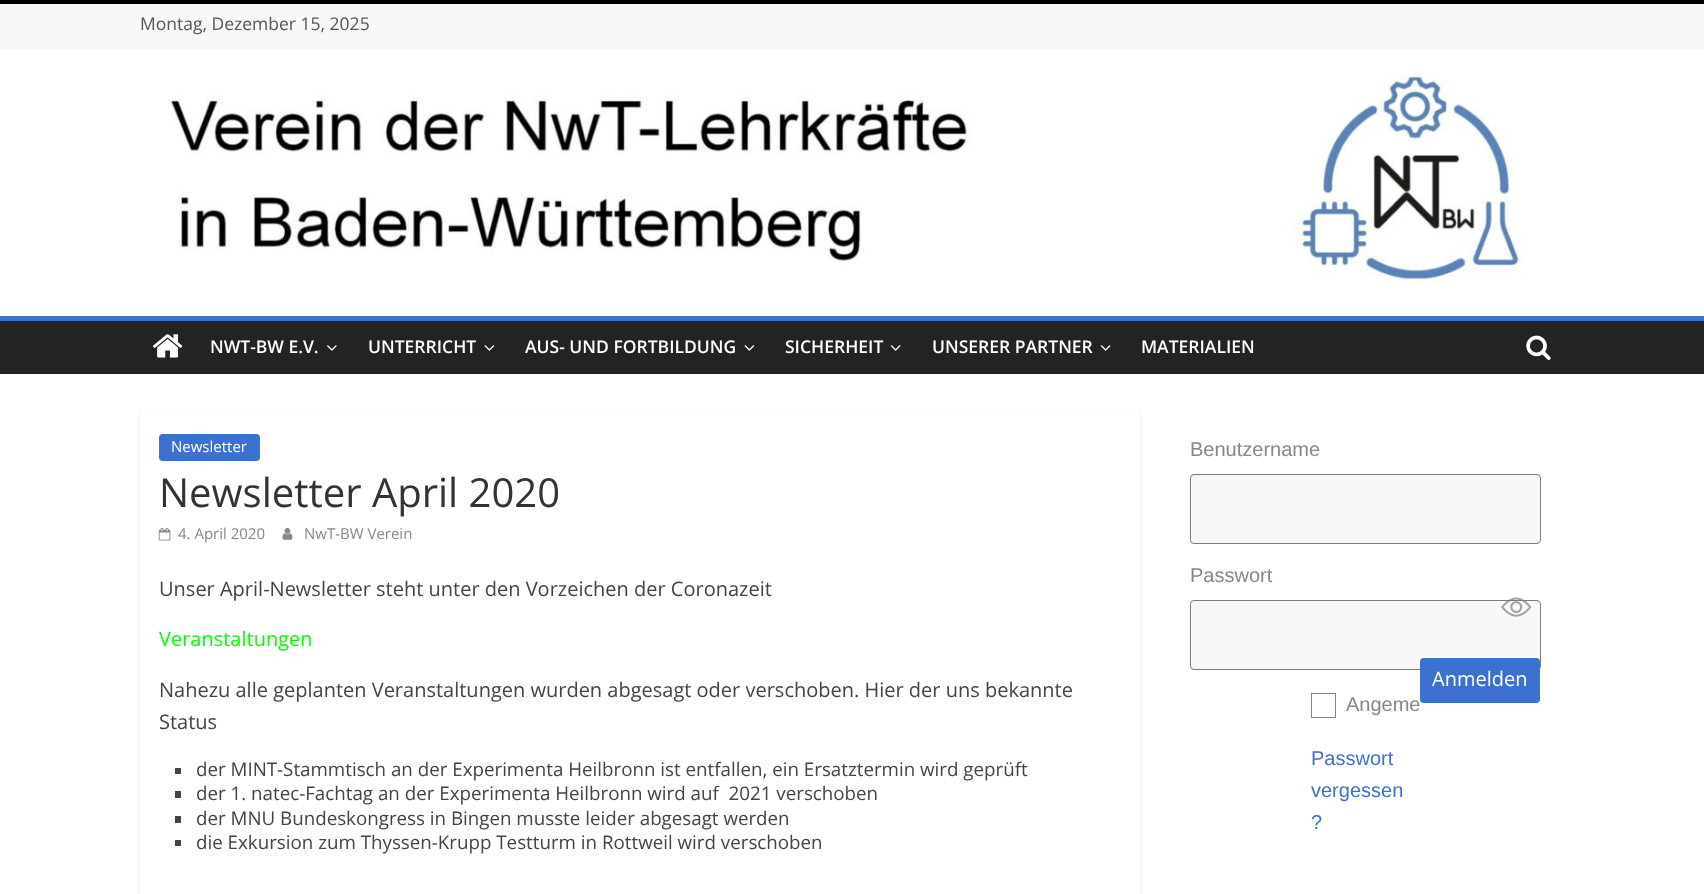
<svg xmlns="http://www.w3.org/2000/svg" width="1704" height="894">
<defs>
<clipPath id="clip1"><path d="M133 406h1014v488h-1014zm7 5h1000v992h-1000z" clip-rule="evenodd"/></clipPath>
</defs>
<rect width="100%" height="100%" fill="#fff"/>
<rect width="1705" height="48" fill="#0000001a" filter="blur(1px)"/>
<rect width="1704" height="4" fill="#000"/>
<rect y="4" width="1704" height="44" fill="#f8f8f8"/>
<text x="140" y="30" style="font-family:Open Sans;font-size:17.5px;fill:#555">Montag, Dezember 15, 2025</text>
<image x="169" y="72" width="1357" height="213" href="media/1.png"/>
<rect y="321" width="1704" height="53" fill="#232323"/>
<rect y="316" width="1704" height="5" fill="#3c70d1"/>
<image x="153" y="334" width="30" height="24" href="media/2.png"/>
<text x="210" y="353" style="font-family:Open Sans;font-size:17.5px;font-weight:600;fill:#fff">NWT-BW E.V.</text>
<image x="327" y="345" width="10" height="6" href="media/3.png"/>
<text x="368" y="353" style="font-family:Open Sans;font-size:17.5px;font-weight:600;fill:#fff">UNTERRICHT</text>
<image x="484" y="345" width="11" height="6" href="media/4.png"/>
<text x="525" y="353" style="font-family:Open Sans;font-size:17.5px;font-weight:600;fill:#fff">AUS- UND FORTBILDUNG</text>
<image x="744" y="345" width="11" height="6" href="media/4.png"/>
<text x="785" y="353" style="font-family:Open Sans;font-size:17.5px;font-weight:600;fill:#fff">SICHERHEIT</text>
<image x="890" y="345" width="11" height="6" href="media/5.png"/>
<text x="932" y="353" style="font-family:Open Sans;font-size:17.5px;font-weight:600;fill:#fff">UNSERER PARTNER</text>
<image x="1100" y="345" width="11" height="6" href="media/5.png"/>
<text x="1141" y="353" style="font-family:Open Sans;font-size:17.5px;font-weight:600;fill:#fff">MATERIALIEN</text>
<image x="1526" y="335" width="25" height="25" href="media/6.png"/>
<g clip-path="url(#clip1)">
<rect x="140" y="413" width="1000" height="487" fill="#0000001a" filter="blur(2px)"/>
</g>
<rect x="159" y="434" width="101" height="27" rx="4" fill="#3c70d1"/>
<text x="171" y="452" style="font-family:Open Sans;font-size:15px;fill:#fff">Newsletter</text>
<text x="159" y="507" style="font-family:Open Sans;font-size:40px;fill:#333">Newsletter April 2020</text>
<image x="158" y="528" width="13" height="13" href="media/7.png"/>
<text x="178" y="539" style="font-family:Open Sans;font-size:15px;fill:#888">4. April 2020</text>
<image x="282" y="528" width="11" height="12" href="media/8.png"/>
<text x="304" y="539" style="font-family:Open Sans;font-size:15px;fill:#888">NwT-BW Verein</text>
<text x="159" y="596" style="font-family:Open Sans;font-size:20px;fill:#444">Unser April-Newsletter steht unter den Vorzeichen der Coronazeit</text>
<text x="159" y="646" style="font-family:Open Sans;font-size:20px;fill:#0f0">Veranstaltungen</text>
<text x="159" y="697" style="font-family:Open Sans;font-size:20px;fill:#444">Nahezu alle geplanten Veranstaltungen wurden abgesagt oder verschoben. Hier der uns bekannte</text>
<text x="159" y="729" style="font-family:Open Sans;font-size:20px;fill:#444">Status</text>
<rect x="175" y="768" width="6" height="6" fill="#444"/>
<text x="196" y="776" style="font-family:Open Sans;font-size:18.75px;fill:#444">der MINT-Stammtisch an der Experimenta Heilbronn ist entfallen, ein Ersatztermin wird geprüft</text>
<rect x="175" y="791" width="6" height="7" fill="#444"/>
<text x="196" y="800" style="font-family:Open Sans;font-size:18.75px;fill:#444" xml:space="preserve">der 1. natec-Fachtag an der Experimenta Heilbronn wird auf  2021 verschoben</text>
<rect x="175" y="816" width="6" height="7" fill="#444"/>
<text x="196" y="825" style="font-family:Open Sans;font-size:18.75px;fill:#444">der MNU Bundeskongress in Bingen musste leider abgesagt werden</text>
<rect x="175" y="840" width="6" height="6" fill="#444"/>
<text x="196" y="849" style="font-family:Open Sans;font-size:18.75px;fill:#444">die Exkursion zum Thyssen-Krupp Testturm in Rottweil wird verschoben</text>
<text x="1190" y="456" style="font-family:Liberation Sans;font-size:20px;fill:#888">Benutzername</text>
<rect x="1190.5" y="474.5" width="350" height="69" rx="3.5" fill="#f8f8f8" stroke="#7c7c7c"/>
<text x="1190" y="582" style="font-family:Liberation Sans;font-size:20px;fill:#888">Passwort</text>
<rect x="1190.5" y="600.5" width="350" height="69" rx="3.5" fill="#f8f8f8" stroke="#7c7c7c"/>
<image x="1501" y="597" width="30" height="20" href="media/9.png"/>
<rect x="1420" y="658" width="120" height="45" rx="4" fill="#3c70d1"/>
<text x="1432" y="686" style="font-family:Open Sans;font-size:20px;fill:#fff">Anmelden</text>
<rect x="1311.5" y="693.5" width="24" height="24" fill="none" stroke="#848484"/>
<text x="1346" y="711" style="font-family:Liberation Sans;font-size:20px;fill:#888">Angeme</text>
<text x="1311" y="765" style="font-family:Liberation Sans;font-size:20px;fill:#3c70d1">Passwort</text>
<text x="1311" y="797" style="font-family:Liberation Sans;font-size:20px;fill:#3c70d1">vergessen</text>
<text x="1311" y="829" style="font-family:Liberation Sans;font-size:20px;fill:#3c70d1">?</text>
</svg>
